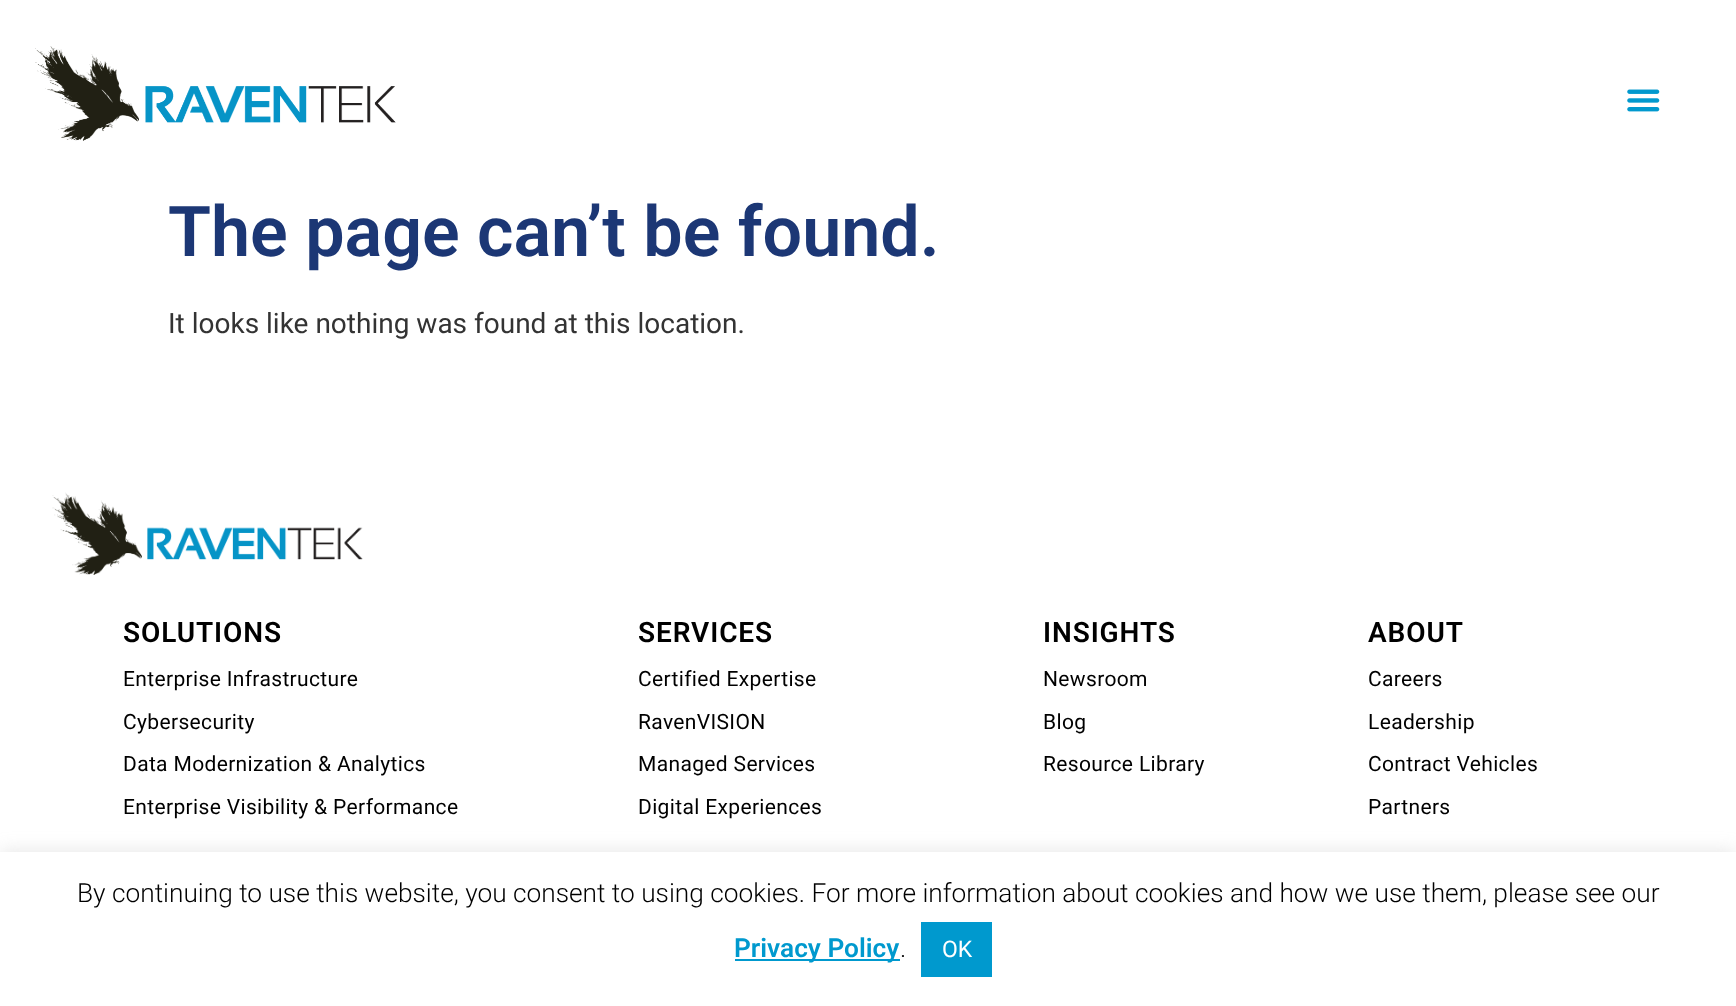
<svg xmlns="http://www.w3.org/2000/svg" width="1736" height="1006">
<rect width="100%" height="100%" fill="#fff"/>
<image x="35" y="46" width="361" height="95" href="media/1.png"/>
<image x="1627" y="89" width="33" height="23" href="media/2.png"/>
<text x="168" y="256" style="font-family:Roboto;font-size:70px;font-weight:600;fill:#1c3775">The page can’t be found.</text>
<text x="168" y="333" style="font-family:Roboto;font-size:28px;fill:#333">It looks like nothing was found at this location.</text>
<image x="52" y="492" width="311" height="83" href="media/3.png"/>
<text x="123" y="642" style="font-family:Roboto;font-size:28px;font-weight:600;letter-spacing:0.9px;fill:#000">SOLUTIONS</text>
<text x="123" y="686" style="font-family:Roboto;font-size:21px;letter-spacing:0.35px;fill:#000">Enterprise Infrastructure</text>
<text x="123" y="729" style="font-family:Roboto;font-size:21px;letter-spacing:0.35px;fill:#000">Cybersecurity</text>
<text x="123" y="771" style="font-family:Roboto;font-size:21px;letter-spacing:0.35px;fill:#000">Data Modernization &amp; Analytics</text>
<text x="123" y="814" style="font-family:Roboto;font-size:21px;letter-spacing:0.35px;fill:#000">Enterprise Visibility &amp; Performance</text>
<text x="638" y="642" style="font-family:Roboto;font-size:28px;font-weight:600;letter-spacing:0.9px;fill:#000">SERVICES</text>
<text x="638" y="686" style="font-family:Roboto;font-size:21px;letter-spacing:0.35px;fill:#000">Certified Expertise</text>
<text x="638" y="729" style="font-family:Roboto;font-size:21px;letter-spacing:0.35px;fill:#000">RavenVISION</text>
<text x="638" y="771" style="font-family:Roboto;font-size:21px;letter-spacing:0.35px;fill:#000">Managed Services</text>
<text x="638" y="814" style="font-family:Roboto;font-size:21px;letter-spacing:0.35px;fill:#000">Digital Experiences</text>
<text x="1043" y="642" style="font-family:Roboto;font-size:28px;font-weight:600;letter-spacing:0.9px;fill:#000">INSIGHTS</text>
<text x="1043" y="686" style="font-family:Roboto;font-size:21px;letter-spacing:0.35px;fill:#000">Newsroom</text>
<text x="1043" y="729" style="font-family:Roboto;font-size:21px;letter-spacing:0.35px;fill:#000">Blog</text>
<text x="1043" y="771" style="font-family:Roboto;font-size:21px;letter-spacing:0.35px;fill:#000">Resource Library</text>
<text x="1368" y="642" style="font-family:Roboto;font-size:28px;font-weight:600;letter-spacing:0.9px;fill:#000">ABOUT</text>
<text x="1368" y="686" style="font-family:Roboto;font-size:21px;letter-spacing:0.35px;fill:#000">Careers</text>
<text x="1368" y="729" style="font-family:Roboto;font-size:21px;letter-spacing:0.35px;fill:#000">Leadership</text>
<text x="1368" y="771" style="font-family:Roboto;font-size:21px;letter-spacing:0.35px;fill:#000">Contract Vehicles</text>
<text x="1368" y="814" style="font-family:Roboto;font-size:21px;letter-spacing:0.35px;fill:#000">Partners</text>
<rect y="851" width="1736" height="154" fill="#acabab4d" filter="blur(9px)"/>
<rect y="852" width="1736" height="154" fill="#fff"/>
<text x="77" y="902" style="font-family:Roboto;font-size:26.25px;font-weight:300;fill:#000">By continuing to use this website, you consent to using cookies. For more information about cookies and how we use them, please see our</text>
<rect x="735" y="959" width="165" height="2" fill="#0099ce"/>
<text x="734" y="957" style="font-family:Roboto;font-size:26.25px;font-weight:600;fill:#0099ce">Privacy Policy</text>
<text x="900" y="957" style="font-family:Roboto;font-size:26.25px;font-weight:300;fill:#000">.</text>
<rect x="921" y="922" width="71" height="55" fill="#0099ce"/>
<text x="942" y="957" style="font-family:Roboto;font-size:23px;fill:#fff">OK</text>
</svg>
